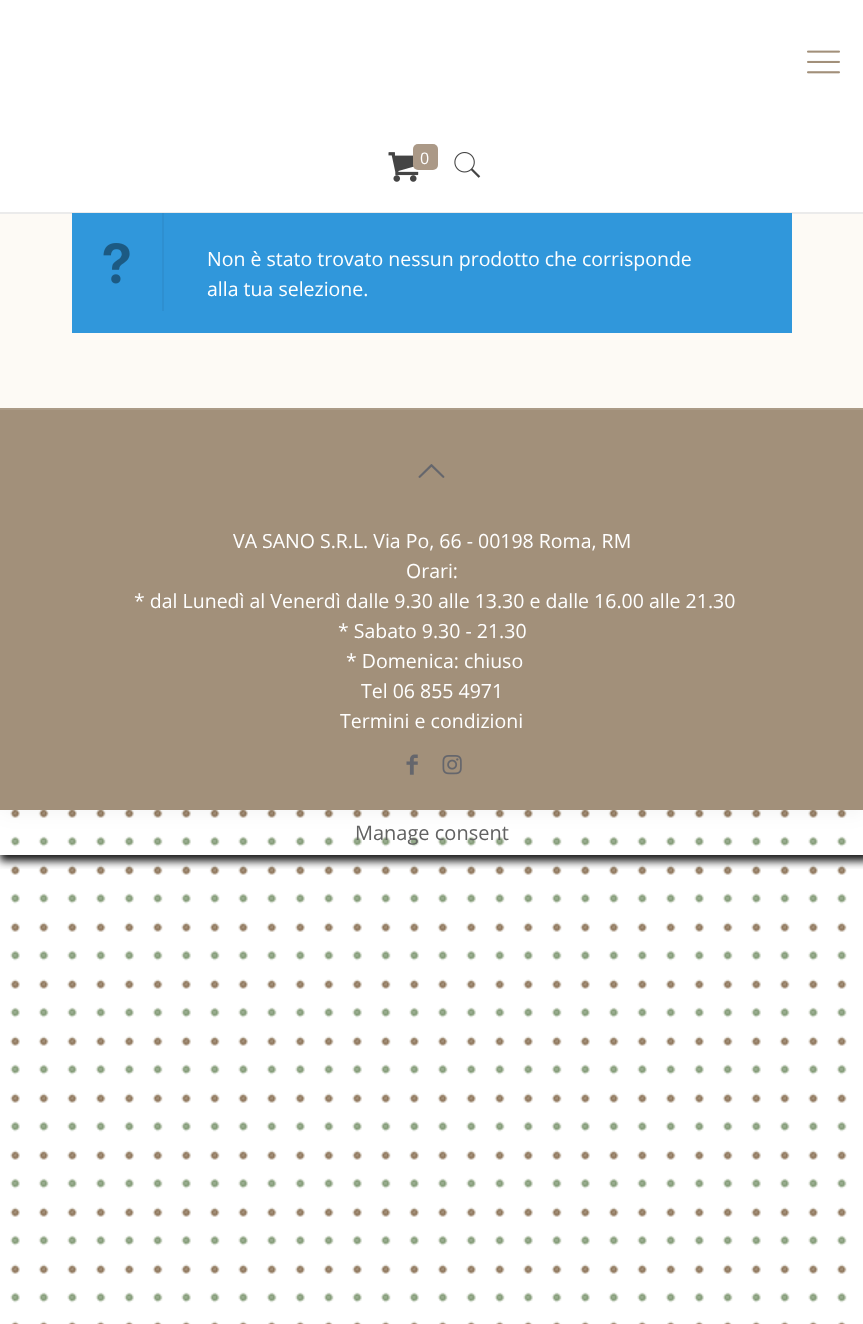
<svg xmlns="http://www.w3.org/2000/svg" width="863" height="1324">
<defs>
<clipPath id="clip1"><rect x="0" y="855" width="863" height="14"/></clipPath>
</defs>
<rect width="100%" height="100%" fill="#fff"/>
<image x="0" y="810" width="863" height="514" href="media/1.png"/>
<rect width="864" height="810" fill="#0000000f" filter="blur(11px)"/>
<rect y="214" width="863" height="194" fill="#fdfaf5"/>
<rect width="863" height="212" fill="#fff"/>
<image x="807" y="50" width="33" height="24" href="media/2.png"/>
<image x="388" y="152" width="31" height="30" href="media/3.png"/>
<rect x="413" y="144" width="25" height="26" rx="5" fill="#ab9987"/>
<text x="420" y="164" style="font-family:Open Sans;font-size:16px;fill:#fff">0</text>
<image x="454" y="152" width="27" height="26" href="media/4.png"/>
<rect y="212" width="863" height="2" fill="#ebebeb"/>
<rect x="72" y="213" width="720" height="120" fill="#3097db"/>
<rect x="162" y="213" width="2" height="98" fill="#2e8fd0"/>
<image x="103" y="243" width="27" height="41" href="media/5.png"/>
<text x="207" y="266" style="font-family:Open Sans;font-size:19.5px;fill:#fff">Non è stato trovato nessun prodotto che corrisponde</text>
<text x="207" y="296" style="font-family:Open Sans;font-size:19.5px;fill:#fff">alla tua selezione.</text>
<g clip-path="url(#clip1)">
<rect y="810" width="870" height="51" fill="#161616" filter="blur(4px)"/>
</g>
<rect y="410" width="863" height="400" fill="#a2907a"/>
<rect y="408" width="863" height="2" fill="#ab9b87"/>
<image x="418" y="464" width="27" height="14" href="media/6.png"/>
<text x="233" y="548" style="font-family:Open Sans;font-size:19.5px;fill:#fff">VA SANO S.R.L. Via Po, 66 - 00198 Roma, RM</text>
<text x="406" y="578" style="font-family:Open Sans;font-size:19.5px;fill:#fff">Orari:</text>
<text x="134" y="608" style="font-family:Open Sans;font-size:19.5px;fill:#fff">* dal Lunedì al Venerdì dalle 9.30 alle 13.30 e dalle 16.00 alle 21.30</text>
<text x="338" y="638" style="font-family:Open Sans;font-size:19.5px;fill:#fff">* Sabato 9.30 - 21.30</text>
<text x="346" y="668" style="font-family:Open Sans;font-size:19.5px;fill:#fff">* Domenica: chiuso</text>
<text x="361" y="698" style="font-family:Open Sans;font-size:19.5px;fill:#fff">Tel 06 855 4971</text>
<text x="340" y="728" style="font-family:Open Sans;font-size:19.5px;fill:#fff">Termini e condizioni</text>
<image x="406" y="754" width="12" height="21" href="media/7.png"/>
<image x="442" y="755" width="20" height="20" href="media/8.png"/>
<text x="355" y="840" style="font-family:Open Sans;font-size:20px;fill:#626262">Manage consent</text>
</svg>
